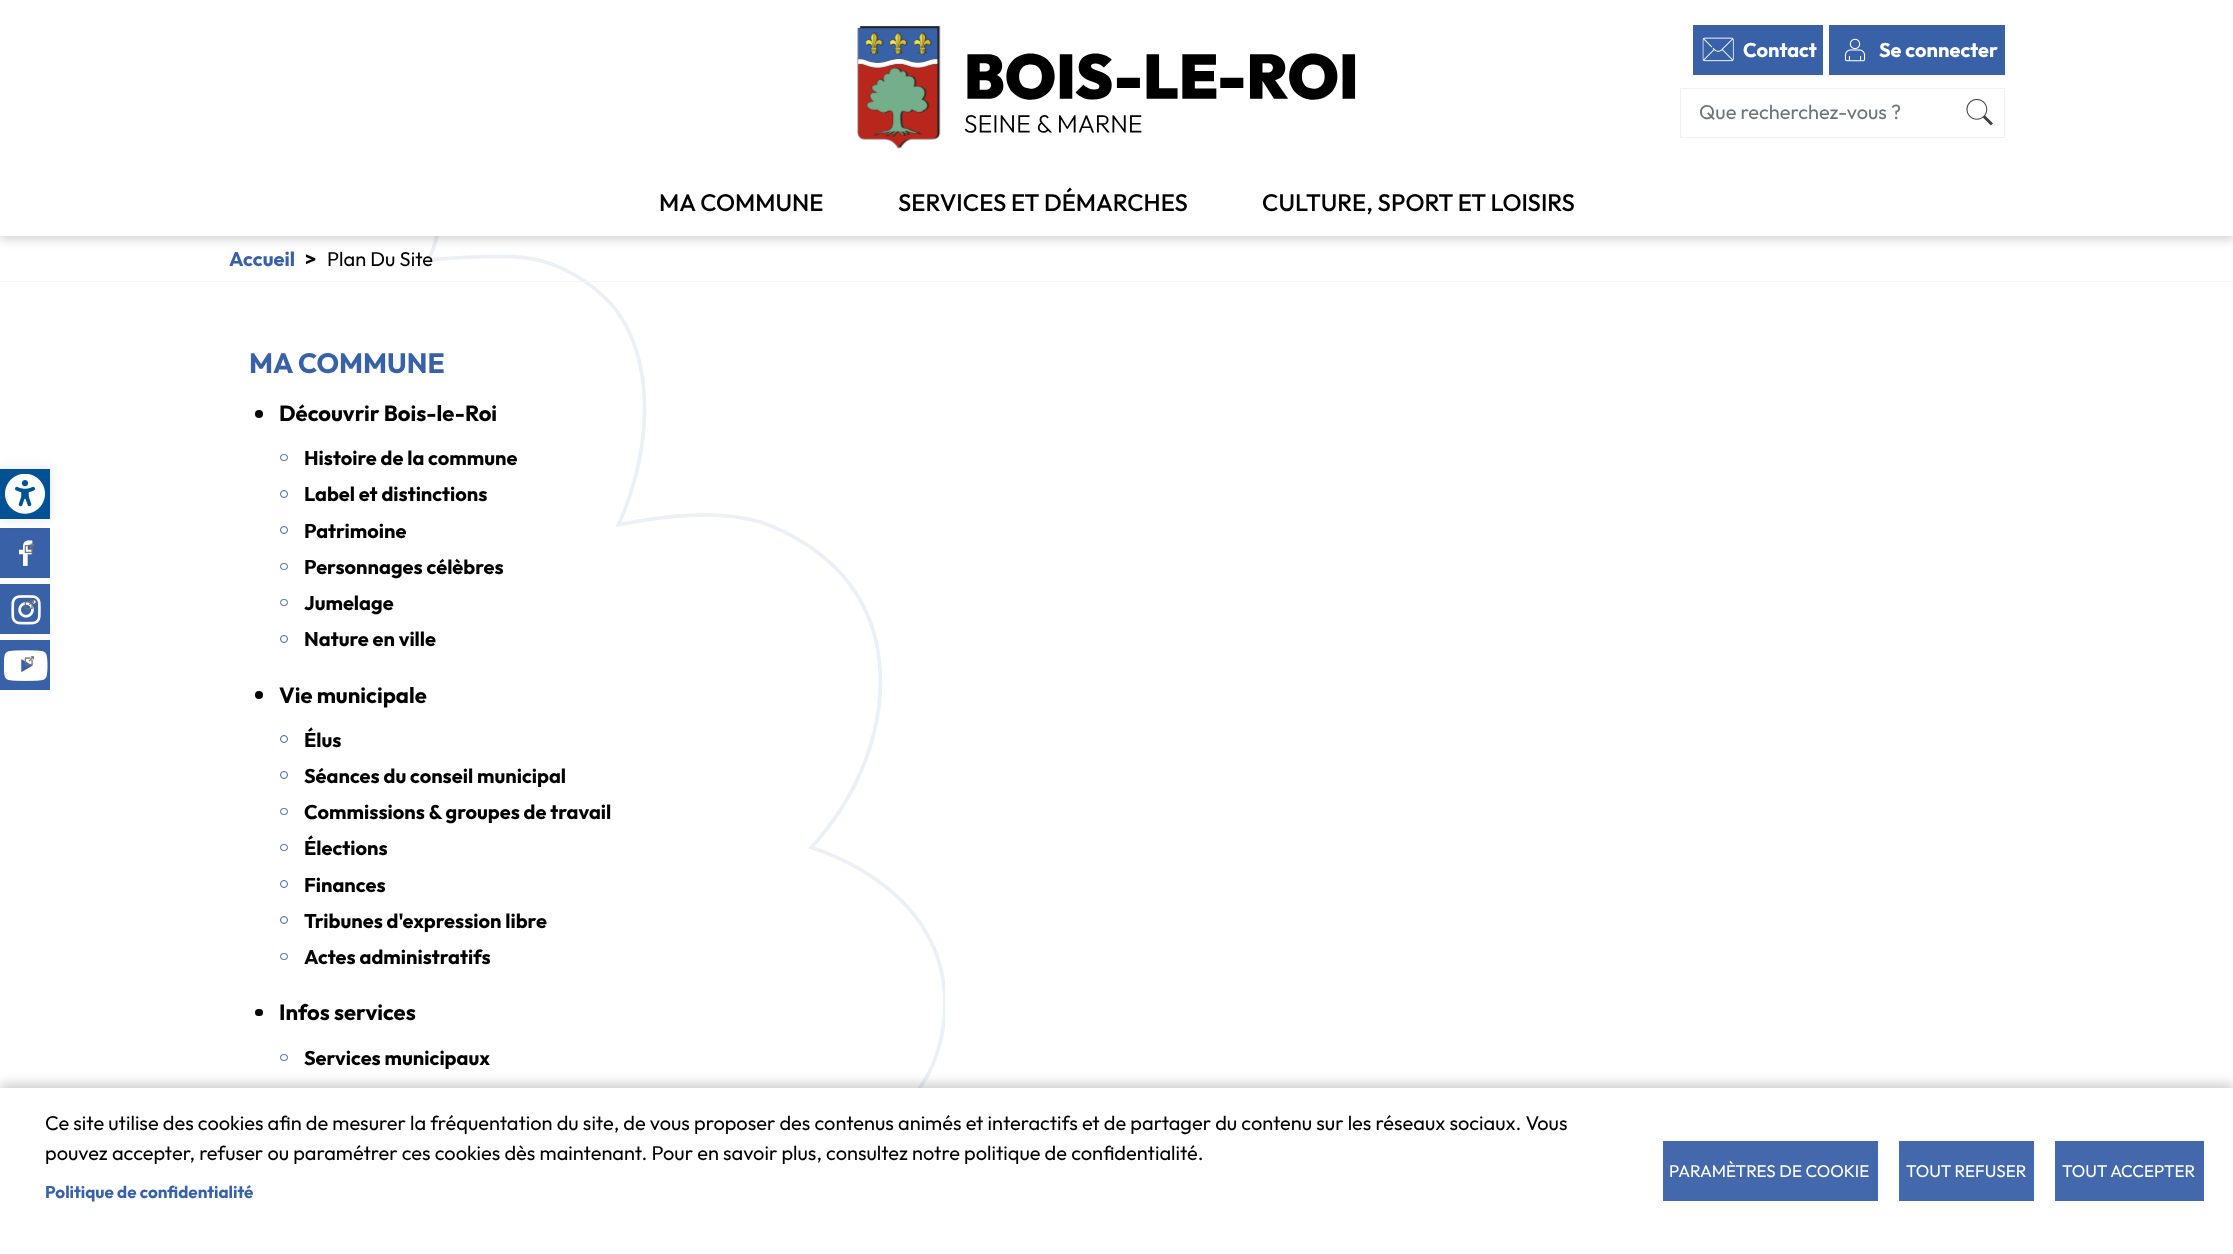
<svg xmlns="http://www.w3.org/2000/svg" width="2233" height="1254">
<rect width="100%" height="100%" fill="#fff"/>
<rect y="528" width="50" height="50" fill="#3961a8"/>
<rect y="469" width="50" height="50" fill="#0000001a" filter="blur(6px)"/>
<rect y="469" width="50" height="50" fill="#005295"/>
<image x="5" y="474" width="40" height="40" href="media/1.png"/>
<image x="425" y="236" width="520" height="852" href="media/12.png"/>
<rect y="4" width="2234" height="236" fill="#00000029" filter="blur(5px)"/>
<rect width="2233" height="236" fill="#fff"/>
<image x="857" y="26" width="499" height="123" href="media/2.png"/>
<rect x="1693" y="25" width="130" height="50" fill="#3961a8"/>
<image x="1702" y="37" width="32" height="25" href="media/3.png"/>
<text x="1743" y="57" style="font-family:Outfit;font-size:20px;font-weight:bold;fill:#fff">Contact</text>
<rect x="1829" y="25" width="176" height="50" fill="#3961a8"/>
<image x="1844" y="38" width="22" height="24" href="media/4.png"/>
<text x="1879" y="57" style="font-family:Outfit;font-size:20px;font-weight:bold;fill:#fff">Se connecter</text>
<rect x="1680.5" y="88.5" width="324" height="49" fill="none" stroke="#f0f0f0"/>
<text x="1699" y="119" style="font-family:Outfit;font-size:20px;fill:#6c757d">Que recherchez-vous ?</text>
<image x="1966" y="99" width="27" height="27" href="media/5.png"/>
<text x="659" y="211" style="font-family:Outfit;font-size:24px;font-weight:500;fill:#000">MA COMMUNE</text>
<text x="898" y="211" style="font-family:Outfit;font-size:24px;font-weight:500;fill:#000">SERVICES ET DÉMARCHES</text>
<text x="1262" y="211" style="font-family:Outfit;font-size:24px;font-weight:500;fill:#000">CULTURE, SPORT ET LOISIRS</text>
<image x="19" y="540" width="14" height="26" href="media/6.png"/>
<image x="24" y="543" width="10" height="10" href="media/7.png"/>
<rect y="584" width="50" height="50" fill="#3961a8"/>
<image x="11" y="595" width="30" height="30" href="media/8.png"/>
<image x="24" y="599" width="11" height="11" href="media/9.png"/>
<rect y="640" width="50" height="50" fill="#3961a8"/>
<image x="4" y="650" width="44" height="31" href="media/10.png"/>
<image x="24" y="656" width="11" height="10" href="media/11.png"/>
<rect y="281" width="2233" height="1" fill="#f5f5f5"/>
<text x="229" y="266" style="font-family:Outfit;font-size:20px;font-weight:bold;fill:#3961a8">Accueil</text>
<text x="305" y="266" style="font-family:Outfit;font-size:20px;font-weight:bold;fill:#000">&gt;</text>
<text x="327" y="266" style="font-family:Outfit;font-size:20px;fill:#000">Plan Du Site</text>
<text x="249" y="373" style="font-family:Outfit;font-size:28px;font-weight:bold;fill:#3961a8">MA COMMUNE</text>
<circle cx="259" cy="414" r="4" fill="#000"/>
<text x="279" y="421" style="font-family:Outfit;font-size:22px;font-weight:bold;fill:#000">Découvrir Bois-le-Roi</text>
<rect x="280.5" y="454.5" width="7" height="6" rx="3" fill="none" stroke="#3961a8"/>
<text x="304" y="465" style="font-family:Outfit;font-size:20px;font-weight:bold;fill:#000">Histoire de la commune</text>
<circle cx="284" cy="494" r="3.5" fill="none" stroke="#3961a8"/>
<text x="304" y="501" style="font-family:Outfit;font-size:20px;font-weight:bold;fill:#000">Label et distinctions</text>
<circle cx="284" cy="530" r="3.5" fill="none" stroke="#3961a8"/>
<text x="304" y="538" style="font-family:Outfit;font-size:20px;font-weight:bold;fill:#000">Patrimoine</text>
<rect x="280.5" y="563.5" width="7" height="6" rx="3" fill="none" stroke="#3961a8"/>
<text x="304" y="574" style="font-family:Outfit;font-size:20px;font-weight:bold;fill:#000">Personnages célèbres</text>
<rect x="280.5" y="599.5" width="7" height="6" rx="3" fill="none" stroke="#3961a8"/>
<text x="304" y="610" style="font-family:Outfit;font-size:20px;font-weight:bold;fill:#000">Jumelage</text>
<circle cx="284" cy="639" r="3.5" fill="none" stroke="#3961a8"/>
<text x="304" y="646" style="font-family:Outfit;font-size:20px;font-weight:bold;fill:#000">Nature en ville</text>
<circle cx="259" cy="695" r="4" fill="#000"/>
<text x="279" y="703" style="font-family:Outfit;font-size:22px;font-weight:bold;fill:#000">Vie municipale</text>
<circle cx="284" cy="739" r="3.5" fill="none" stroke="#3961a8"/>
<text x="304" y="747" style="font-family:Outfit;font-size:20px;font-weight:bold;fill:#000">Élus</text>
<circle cx="284" cy="775" r="3.5" fill="none" stroke="#3961a8"/>
<text x="304" y="783" style="font-family:Outfit;font-size:20px;font-weight:bold;fill:#000">Séances du conseil municipal</text>
<rect x="280.5" y="808.5" width="7" height="6" rx="3" fill="none" stroke="#3961a8"/>
<text x="304" y="819" style="font-family:Outfit;font-size:20px;font-weight:bold;fill:#000">Commissions &amp; groupes de travail</text>
<rect x="280.5" y="844.5" width="7" height="6" rx="3" fill="none" stroke="#3961a8"/>
<text x="304" y="855" style="font-family:Outfit;font-size:20px;font-weight:bold;fill:#000">Élections</text>
<circle cx="284" cy="884" r="3.5" fill="none" stroke="#3961a8"/>
<text x="304" y="892" style="font-family:Outfit;font-size:20px;font-weight:bold;fill:#000">Finances</text>
<circle cx="284" cy="920" r="3.5" fill="none" stroke="#3961a8"/>
<text x="304" y="928" style="font-family:Outfit;font-size:20px;font-weight:bold;fill:#000">Tribunes d'expression libre</text>
<rect x="280.5" y="953.5" width="7" height="6" rx="3" fill="none" stroke="#3961a8"/>
<text x="304" y="964" style="font-family:Outfit;font-size:20px;font-weight:bold;fill:#000">Actes administratifs</text>
<rect x="255" y="1009" width="8" height="7" rx="3.5" fill="#000"/>
<text x="279" y="1020" style="font-family:Outfit;font-size:22px;font-weight:bold;fill:#000">Infos services</text>
<rect x="280.5" y="1054.5" width="7" height="6" rx="3" fill="none" stroke="#3961a8"/>
<text x="304" y="1065" style="font-family:Outfit;font-size:20px;font-weight:bold;fill:#000">Services municipaux</text>
<rect y="1084" width="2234" height="167" fill="#00000033" filter="blur(6px)"/>
<rect y="1088" width="2233" height="166" fill="#fff"/>
<text x="45" y="1130" style="font-family:Outfit;font-size:20px;fill:#000">Ce site utilise des cookies afin de mesurer la fréquentation du site, de vous proposer des contenus animés et interactifs et de partager du contenu sur les réseaux sociaux. Vous</text>
<text x="45" y="1160" style="font-family:Outfit;font-size:20px;fill:#000">pouvez accepter, refuser ou paramétrer ces cookies dès maintenant. Pour en savoir plus, consultez notre politique de confidentialité.</text>
<text x="45" y="1198" style="font-family:Outfit;font-size:17px;font-weight:bold;fill:#3961a8">Politique de confidentialité</text>
<rect x="1663" y="1141" width="215" height="60" fill="#4369ac"/>
<text x="1669" y="1177" style="font-family:Outfit;font-size:17px;fill:#fff">PARAMÈTRES DE COOKIE</text>
<rect x="1899" y="1141" width="135" height="60" fill="#4369ac"/>
<text x="1906" y="1177" style="font-family:Outfit;font-size:17px;fill:#fff">TOUT REFUSER</text>
<rect x="2055" y="1141" width="149" height="60" fill="#4369ac"/>
<text x="2062" y="1177" style="font-family:Outfit;font-size:17px;fill:#fff">TOUT ACCEPTER</text>
</svg>
